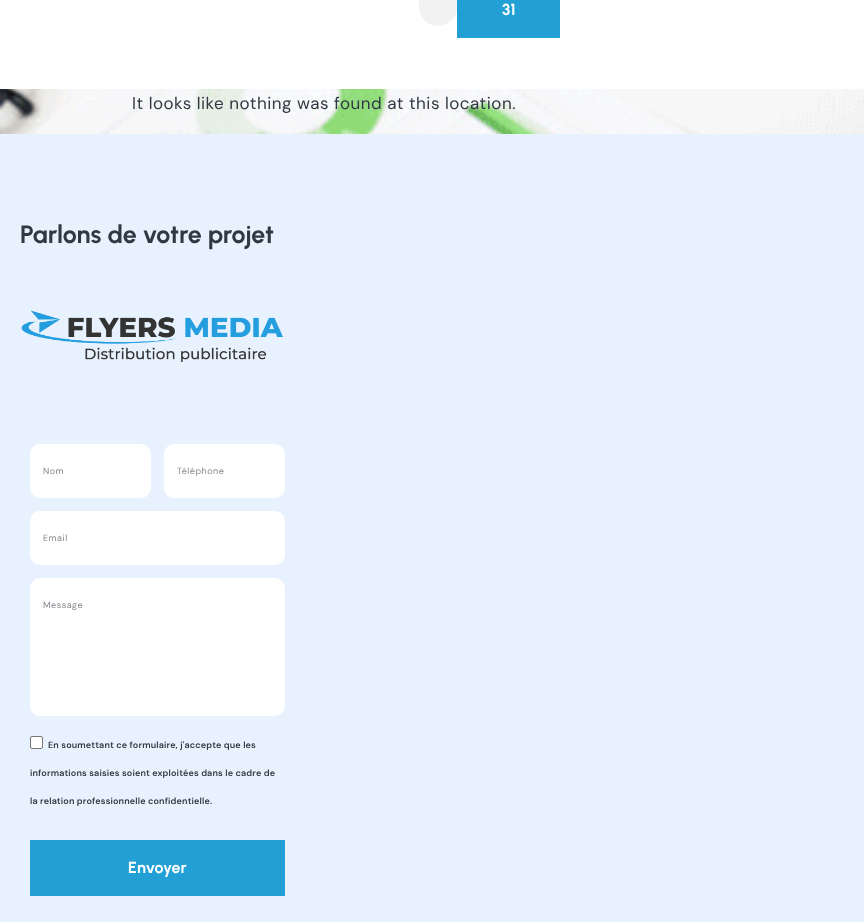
<svg xmlns="http://www.w3.org/2000/svg" width="864" height="922">
<rect width="100%" height="100%" fill="#fff"/>
<image x="0" y="89" width="864" height="45" href="media/1.png"/>
<rect x="419" y="-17" width="38" height="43" rx="19" fill="#f2f2f2"/>
<rect x="457" width="103" height="38" fill="#22a0d6"/>
<text x="502" y="15" style="font-family:Urbanist;font-size:16px;font-weight:bold;letter-spacing:0.15px;fill:#fff">31</text>
<text x="132" y="109" style="font-family:DM Sans;font-size:17px;letter-spacing:0.5px;fill:#303841">It looks like nothing was found at this location.</text>
<rect y="134" width="864" height="788" fill="#e8f2ff"/>
<text x="20" y="243" style="font-family:Urbanist;font-size:25px;font-weight:bold;fill:#303841">Parlons de votre projet</text>
<image x="21" y="310" width="263" height="52" href="media/2.png"/>
<rect x="30" y="444" width="121" height="54" rx="10" fill="#fff"/>
<text x="43" y="474" style="font-family:DM Sans;font-size:9px;letter-spacing:0.5px;fill:#83888d">Nom</text>
<rect x="164" y="444" width="121" height="54" rx="10" fill="#fff"/>
<text x="177" y="474" style="font-family:DM Sans;font-size:9px;letter-spacing:0.5px;fill:#83888d">Téléphone</text>
<rect x="30" y="511" width="255" height="54" rx="10" fill="#fff"/>
<text x="43" y="541" style="font-family:DM Sans;font-size:9px;letter-spacing:0.5px;fill:#83888d">Email</text>
<rect x="30" y="578" width="255" height="138" rx="10" fill="#fff"/>
<text x="43" y="608" style="font-family:DM Sans;font-size:9px;letter-spacing:0.5px;fill:#83888d">Message</text>
<rect x="30.5" y="736.5" width="12" height="12" rx="1.5" fill="#fff" stroke="#767676"/>
<text x="48" y="748" style="font-family:DM Sans;font-size:9px;font-weight:600;letter-spacing:0.15px;fill:#303841">En soumettant ce formulaire, j'accepte que les</text>
<text x="30" y="776" style="font-family:DM Sans;font-size:9px;font-weight:600;letter-spacing:0.15px;fill:#303841">informations saisies soient exploitées dans le cadre de</text>
<text x="30" y="804" style="font-family:DM Sans;font-size:9px;font-weight:600;letter-spacing:0.15px;fill:#303841">la relation professionnelle confidentielle.</text>
<rect x="30" y="840" width="255" height="56" fill="#22a0d6"/>
<text x="128" y="873" style="font-family:Urbanist;font-size:16px;font-weight:bold;letter-spacing:0.15px;fill:#fff">Envoyer</text>
</svg>
